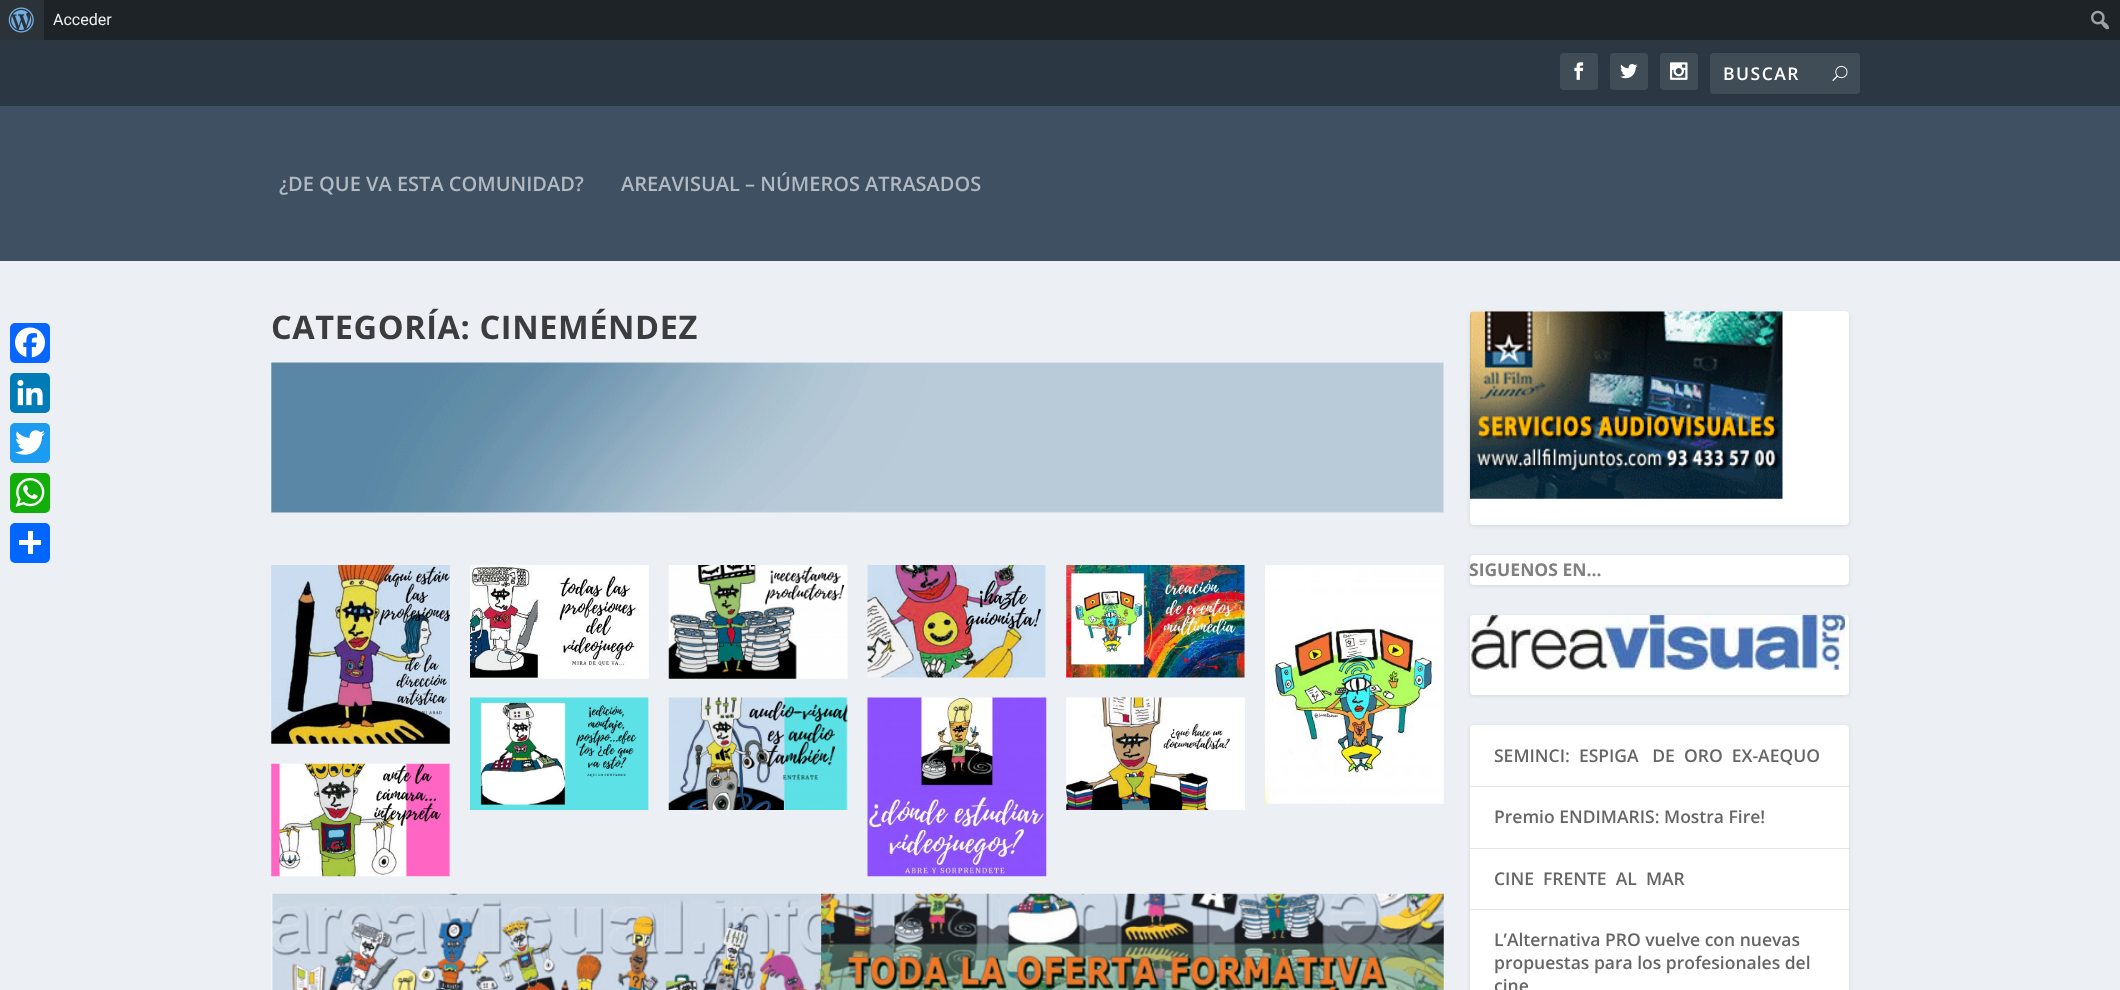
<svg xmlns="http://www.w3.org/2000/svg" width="2120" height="990">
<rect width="100%" height="100%" fill="#ecf0f5"/>
<rect x="44" width="2076" height="40" fill="#1d2327"/>
<rect width="44" height="40" fill="#2c3338"/>
<image x="8" y="7" width="26" height="26" href="media/1.png"/>
<text x="53" y="25" style="font-family:Roboto;font-size:16px;fill:#f0f0f1">Acceder</text>
<image x="2091" y="10" width="18" height="20" href="media/2.png"/>
<rect x="10" y="323" width="40" height="40" rx="5" fill="#0866ff"/>
<image x="15" y="327" width="30" height="31" href="media/3.png"/>
<rect x="10" y="373" width="40" height="40" rx="5" fill="#007bb5"/>
<image x="17" y="379" width="26" height="27" href="media/4.png"/>
<rect x="10" y="423" width="40" height="40" rx="5" fill="#1d9bf0"/>
<image x="15" y="430" width="30" height="25" href="media/5.png"/>
<rect x="10" y="473" width="40" height="40" rx="5" fill="#12af0a"/>
<image x="15" y="478" width="30" height="29" href="media/6.png"/>
<rect x="10" y="523" width="40" height="40" rx="5" fill="#0166ff"/>
<rect x="28" y="531" width="5" height="23" fill="#fff"/>
<rect x="19" y="540" width="22" height="5" fill="#fff"/>
<rect y="40" width="2120" height="66" fill="#2b3843"/>
<rect x="1560" y="53" width="38" height="37" rx="4" fill="#404c56"/>
<image x="1574" y="62" width="10" height="18" href="media/7.png"/>
<rect x="1610" y="53" width="38" height="37" rx="4" fill="#404c56"/>
<image x="1620" y="64" width="18" height="15" href="media/8.png"/>
<rect x="1660" y="53" width="38" height="37" rx="4" fill="#404c56"/>
<image x="1670" y="62" width="18" height="18" href="media/9.png"/>
<rect x="1710" y="53" width="150" height="41" rx="4" fill="#404c56"/>
<text x="1723" y="80" style="font-family:Open Sans;font-size:17.5px;font-weight:600;letter-spacing:1.5px;fill:#fff">BUSCAR</text>
<image x="1832" y="65" width="16" height="16" href="media/10.png"/>
<rect y="106" width="2120" height="155" fill="#3e5062"/>
<text x="279" y="191" style="font-family:Open Sans;font-size:20px;font-weight:600;fill:#b2b9c0">¿DE QUE VA ESTA COMUNIDAD?</text>
<text x="621" y="191" style="font-family:Open Sans;font-size:20px;font-weight:600;fill:#b2b9c0">AREAVISUAL – NÚMEROS ATRASADOS</text>
<text x="271" y="339" style="font-family:Open Sans;font-size:32.5px;font-weight:bold;letter-spacing:0.6px;fill:#3b3c3d">CATEGORÍA: CINEMÉNDEZ</text>
<image x="271" y="362" width="1173" height="151" href="media/11.png"/>
<image x="271" y="565" width="179" height="179" href="media/12.png"/>
<image x="271" y="763" width="179" height="114" href="media/13.png"/>
<image x="470" y="565" width="179" height="114" href="media/14.png"/>
<image x="470" y="697" width="179" height="113" href="media/15.png"/>
<image x="668" y="565" width="180" height="114" href="media/16.png"/>
<image x="668" y="697" width="180" height="113" href="media/17.png"/>
<image x="867" y="565" width="179" height="113" href="media/18.png"/>
<image x="867" y="697" width="180" height="180" href="media/19.png"/>
<image x="1066" y="565" width="179" height="113" href="media/20.png"/>
<image x="1066" y="697" width="179" height="113" href="media/21.png"/>
<image x="1265" y="565" width="179" height="239" href="media/22.png"/>
<image x="271" y="893" width="1173" height="97" href="media/23.png"/>
<rect x="1470" y="313" width="379" height="213" rx="4" fill="#0000001a" filter="blur(2px)"/>
<rect x="1470" y="311" width="379" height="214" rx="4" fill="#fff"/>
<image x="1470" y="311" width="313" height="188" href="media/24.png"/>
<rect x="1470" y="556" width="379" height="30" rx="4" fill="#0000001a" filter="blur(2px)"/>
<rect x="1470" y="555" width="379" height="30" rx="4" fill="#fff"/>
<text x="1469" y="576" style="font-family:Open Sans;font-size:17.5px;font-weight:bold;fill:#808080">SIGUENOS EN...</text>
<rect x="1470" y="616" width="379" height="80" rx="4" fill="#0000001a" filter="blur(2px)"/>
<rect x="1470" y="615" width="379" height="80" rx="4" fill="#fff"/>
<image x="1470" y="615" width="375" height="55" href="media/25.png"/>
<rect x="1470" y="726" width="379" height="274" rx="4" fill="#0000001a" filter="blur(2px)"/>
<rect x="1470" y="725" width="379" height="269" rx="4" fill="#fff"/>
<rect x="1470" y="786" width="379" height="1" fill="#e6e6e6"/>
<text x="1494" y="762" style="font-family:Open Sans;font-size:17.5px;font-weight:600;fill:#666" xml:space="preserve">SEMINCI:  ESPIGA   DE  ORO  EX-AEQUO</text>
<rect x="1470" y="848" width="379" height="1" fill="#e6e6e6"/>
<text x="1494" y="823" style="font-family:Open Sans;font-size:17.5px;font-weight:600;fill:#666">Premio ENDIMARIS: Mostra Fire!</text>
<rect x="1470" y="909" width="379" height="1" fill="#e6e6e6"/>
<text x="1494" y="885" style="font-family:Open Sans;font-size:17.5px;font-weight:600;fill:#666" xml:space="preserve">CINE  FRENTE  AL  MAR</text>
<text x="1494" y="946" style="font-family:Open Sans;font-size:17.5px;font-weight:600;fill:#666">L’Alternativa PRO vuelve con nuevas</text>
<text x="1494" y="969" style="font-family:Open Sans;font-size:17.5px;font-weight:600;fill:#666">propuestas para los profesionales del</text>
<text x="1494" y="992" style="font-family:Open Sans;font-size:17.5px;font-weight:600;fill:#666">cine</text>
</svg>
